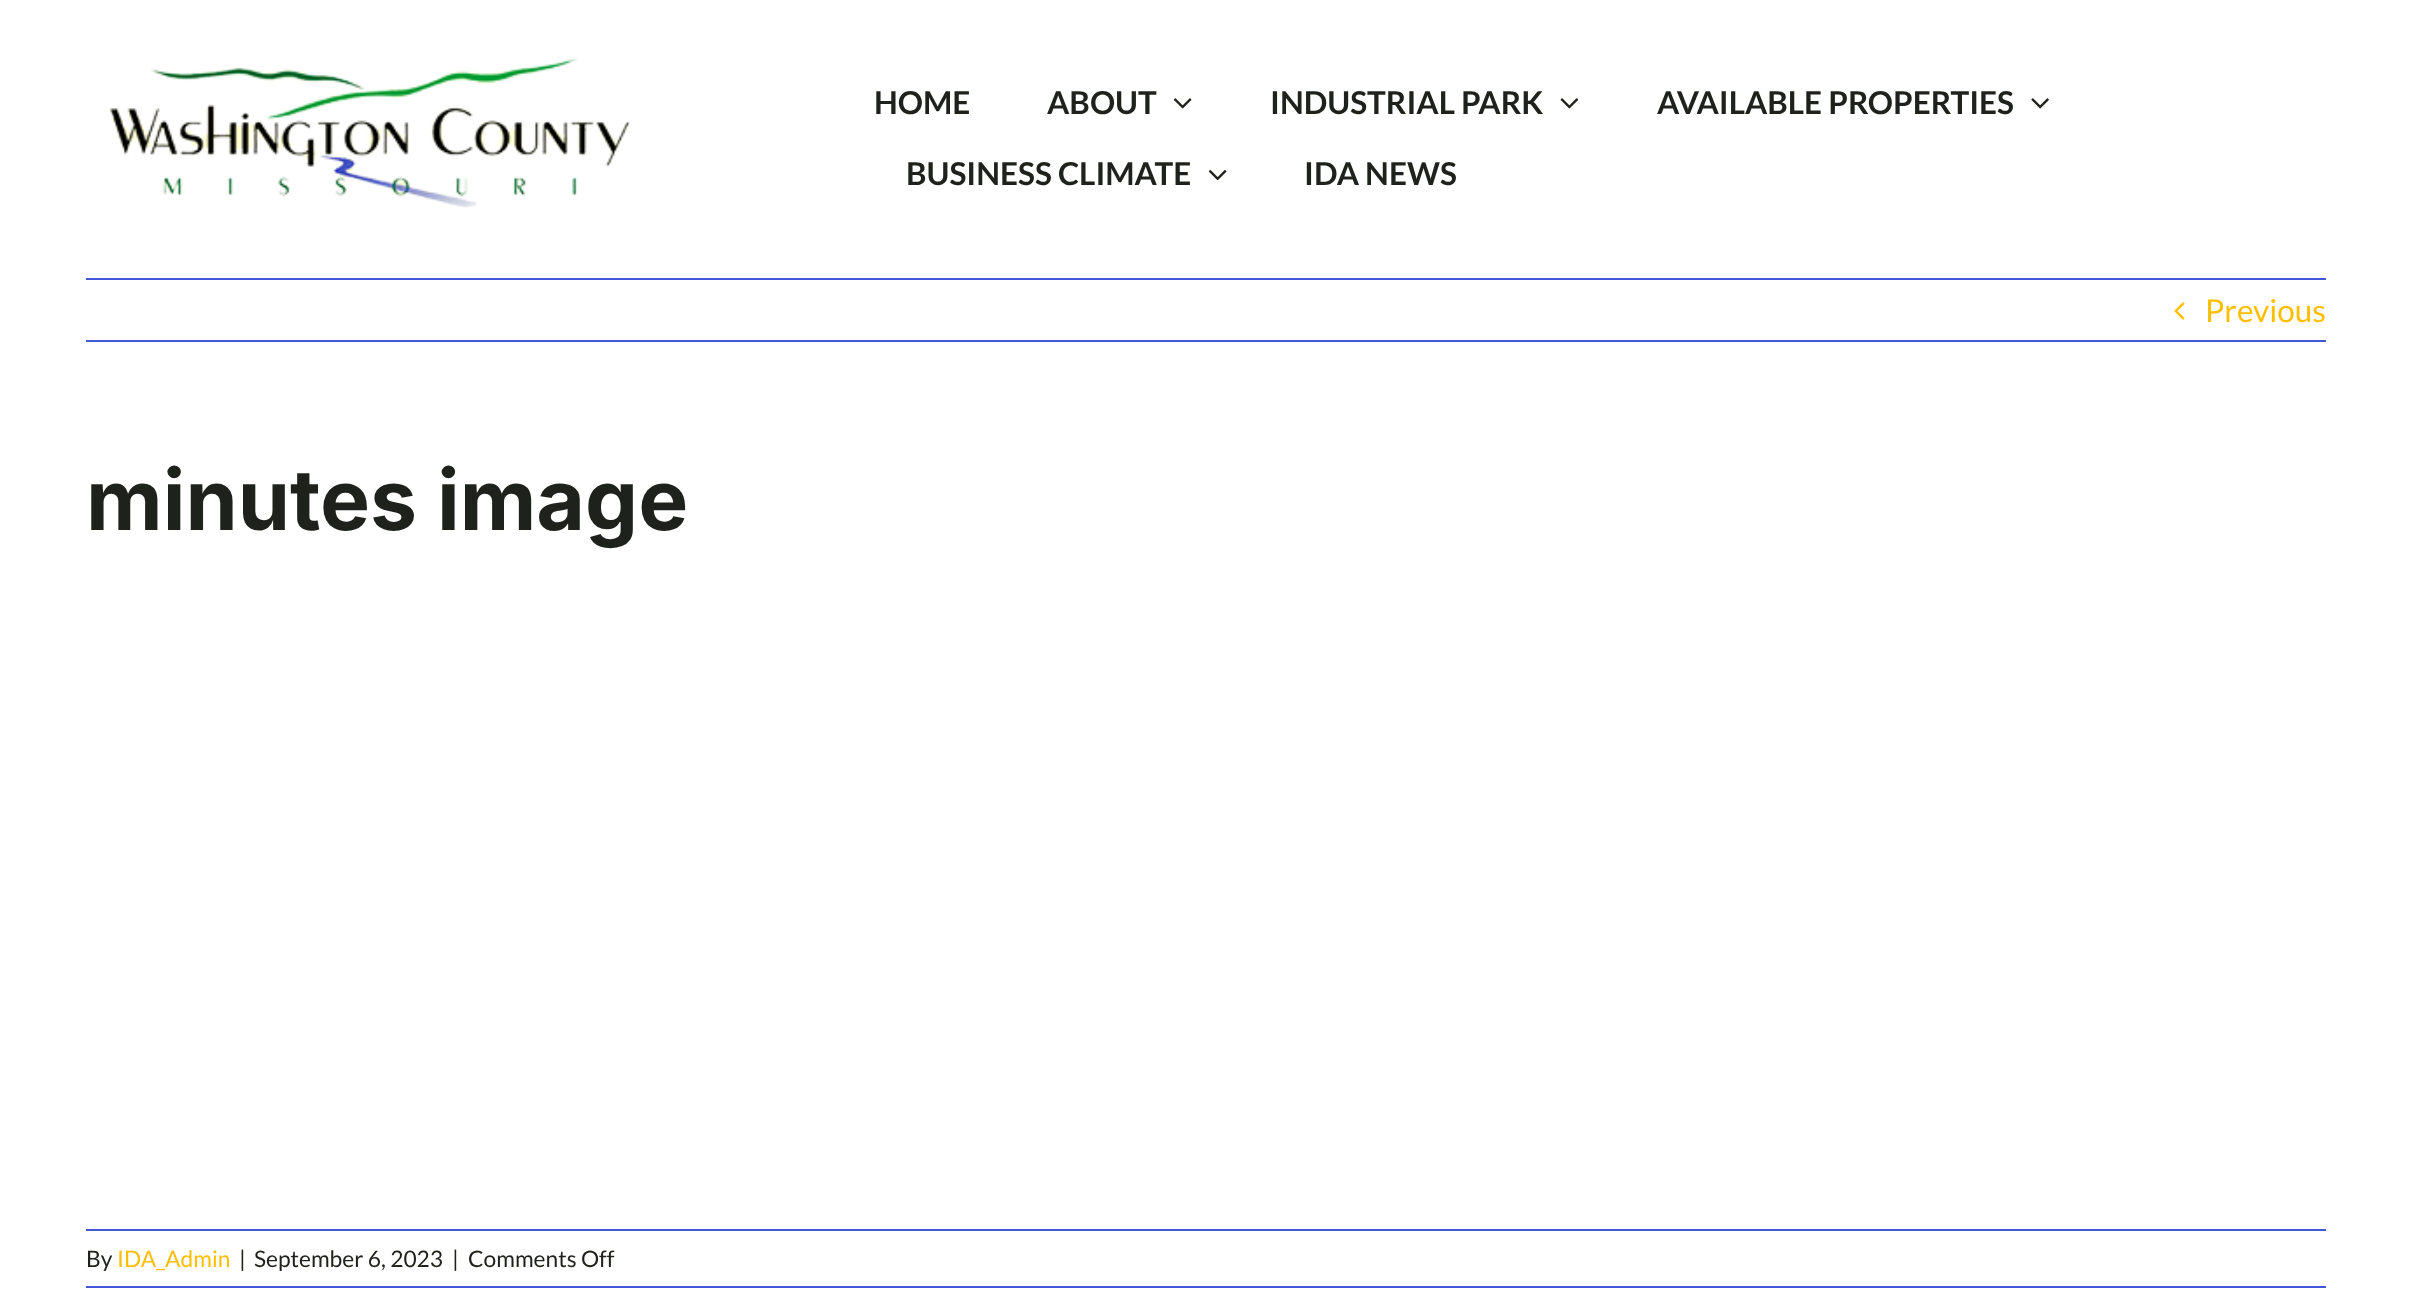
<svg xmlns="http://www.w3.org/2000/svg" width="2410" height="1313">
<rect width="100%" height="100%" fill="#fff"/>
<image x="109" y="57" width="522" height="151" href="media/1.png"/>
<text x="874" y="114" style="font-family:Lato;font-size:31.5px;font-weight:bold;fill:#1f211c">HOME</text>
<text x="1047" y="114" style="font-family:Lato;font-size:31.5px;font-weight:bold;fill:#1f211c">ABOUT</text>
<image x="1173" y="98" width="19" height="11" href="media/2.png"/>
<text x="1270" y="114" style="font-family:Lato;font-size:31.5px;font-weight:bold;fill:#1f211c">INDUSTRIAL PARK</text>
<image x="1560" y="98" width="19" height="11" href="media/3.png"/>
<text x="1657" y="114" style="font-family:Lato;font-size:31.5px;font-weight:bold;fill:#1f211c">AVAILABLE PROPERTIES</text>
<image x="2031" y="98" width="18" height="11" href="media/4.png"/>
<text x="906" y="185" style="font-family:Lato;font-size:31.5px;font-weight:bold;fill:#1f211c">BUSINESS CLIMATE</text>
<image x="1208" y="170" width="19" height="11" href="media/5.png"/>
<text x="1304" y="185" style="font-family:Lato;font-size:31.5px;font-weight:bold;fill:#1f211c">IDA NEWS</text>
<rect x="86" y="278" width="2240" height="2" fill="#4158d9"/>
<rect x="86" y="340" width="2240" height="2" fill="#4158d9"/>
<image x="2174" y="302" width="11" height="18" href="media/6.png"/>
<text x="2205" y="322" style="font-family:Lato;font-size:31.5px;fill:#ffbf00">Previous</text>
<text x="86" y="530" style="font-family:Inter;font-size:84px;font-weight:bold;fill:#1f211c">minutes image</text>
<rect x="86" y="1229" width="2240" height="2" fill="#4158d9"/>
<rect x="86" y="1286" width="2240" height="2" fill="#4158d9"/>
<text x="86" y="1267" style="font-family:Lato;font-size:22.75px;fill:#1f211c">By</text>
<text x="117" y="1267" style="font-family:Lato;font-size:22.75px;fill:#ffbf00">IDA_Admin</text>
<text x="239" y="1267" style="font-family:Lato;font-size:22.75px;fill:#1f211c">|</text>
<text x="254" y="1267" style="font-family:Lato;font-size:22.75px;fill:#1f211c">September 6, 2023</text>
<text x="452" y="1267" style="font-family:Lato;font-size:22.75px;fill:#1f211c">|</text>
<text x="468" y="1267" style="font-family:Lato;font-size:22.75px;fill:#1f211c">Comments Off</text>
</svg>
